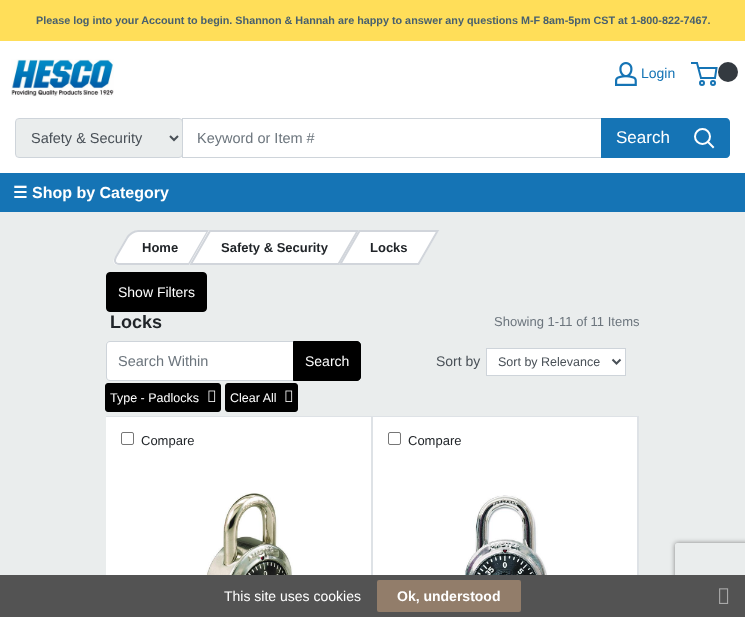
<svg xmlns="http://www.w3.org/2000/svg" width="745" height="617">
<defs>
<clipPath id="clip1"><path d="M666 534h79v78h-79zm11 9h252c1 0 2 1 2 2v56c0 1-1 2-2 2h-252c-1 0-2-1-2-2v-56c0-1 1-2 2-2z" clip-rule="evenodd"/></clipPath>
</defs>
<rect width="100%" height="100%" fill="#eaeded"/>
<rect y="41" width="745" height="132" fill="#fff"/>
<rect width="745" height="41" fill="#ffde59"/>
<text x="36" y="24" style="font-family:Liberation Sans;font-size:10.8px;font-weight:bold;fill:#48606e">Please log into your Account to begin. Shannon &amp; Hannah are happy to answer any questions M-F 8am-5pm CST at 1-800-822-7467.</text>
<image x="615" y="62" width="22" height="24" href="media/1.png"/>
<text x="641" y="78" style="font-family:Liberation Sans;font-size:14px;fill:#1574b5">Login</text>
<path d="M698.5 68h18l-1.5 10h-14l-4-15h-6" fill="none" stroke="#1574b5" stroke-width="2"/>
<circle cx="728" cy="72" r="10" fill="#343a40"/>
<circle cx="702" cy="83" r="2" fill="none" stroke="#1574b5" stroke-width="2"/>
<circle cx="713" cy="83" r="2" fill="none" stroke="#1574b5" stroke-width="2"/>
<image x="11" y="59" width="103" height="38" href="media/2.png"/>
<rect x="16" y="119" width="166" height="38" rx="2.5" fill="#eaeded"/>
<rect x="15.5" y="118.5" width="167" height="39" rx="3.5" fill="none" stroke="#ced4da"/>
<path d="M170 136l4 4l4-4" fill="none" stroke="#495057" stroke-width="2"/>
<text x="31" y="143" style="font-family:Liberation Sans;font-size:14.5px;fill:#495057">Safety &amp; Security</text>
<rect x="182.5" y="118.5" width="419" height="39" fill="none" stroke="#ced4da"/>
<text x="197" y="143" style="font-family:Liberation Sans;font-size:14.5px;fill:#6c757d">Keyword or Item #</text>
<path d="M601 118h125c2 0 4 2 4 4v32c0 2-2 4-4 4h-125z" fill="#1574b5"/>
<text x="616" y="143" style="font-family:Liberation Sans;font-size:17px;fill:#fff">Search</text>
<path d="M713 147l-5-5" fill="none" stroke="#fff" stroke-width="2" stroke-linecap="square"/>
<circle cx="702.5" cy="136.5" r="7.5" fill="none" stroke="#fff" stroke-width="2"/>
<rect y="173" width="745" height="39" fill="#1574b5"/>
<text x="13" y="198" style="font-family:DejaVu Sans;font-size:16px;font-weight:bold;fill:#fff">☰</text>
<text x="32" y="198" style="font-family:Liberation Sans;font-size:16px;font-weight:bold;fill:#fff">Shop by Category</text>
<path d="M139 230h70l-20 35h-71c-4 0-6-3-3-8l11-19c3-4 8-8 13-8z" fill="#fff"/>
<path d="M138 231h70l-19 33h-70c-4 0-5-3-3-7l11-19c2-3.5 7-7 11-7z" fill="none" stroke="#d1d5db" stroke-width="2"/>
<text x="142" y="252" style="font-family:Liberation Sans;font-size:13px;font-weight:bold;fill:#212529">Home</text>
<path d="M209 230h150l-20 35h-150z" fill="#fff"/>
<path d="M210 231h147.5l-19 33h-147.5z" fill="none" stroke="#d1d5db" stroke-width="2"/>
<text x="221" y="252" style="font-family:Liberation Sans;font-size:13px;font-weight:bold;fill:#212529">Safety &amp; Security</text>
<path d="M359 230h80l-20 35h-80z" fill="#fff"/>
<path d="M359.5 231h78l-19 33h-78z" fill="none" stroke="#d1d5db" stroke-width="2"/>
<text x="370" y="252" style="font-family:Liberation Sans;font-size:13px;font-weight:bold;fill:#212529">Locks</text>
<rect x="106.5" y="272.5" width="100" height="39" rx="3.5" fill="#000" stroke="#000"/>
<text x="118" y="297" style="font-family:Liberation Sans;font-size:14px;fill:#fff">Show Filters</text>
<text x="110" y="328" style="font-family:Liberation Sans;font-size:18px;font-weight:bold;fill:#212529">Locks</text>
<text x="494" y="326" style="font-family:Liberation Sans;font-size:13px;fill:#6c757d">Showing 1-11 of 11 Items</text>
<path d="M109.5 342h183.5v38h-183.5c-1.5 0-2.5-1-2.5-2.5v-33c0-1.5 1-2.5 2.5-2.5z" fill="#fff"/>
<path d="M110 341.5h183.5v39h-183.5c-2 0-3.5-1.5-3.5-3.5v-32c0-2 1.5-3.5 3.5-3.5z" fill="none" stroke="#ced4da"/>
<text x="118" y="366" style="font-family:Liberation Sans;font-size:14.5px;fill:#6c757d">Search Within</text>
<path d="M293.5 341.5h63.5c2 0 3.5 1.5 3.5 3.5v32c0 2-1.5 3.5-3.5 3.5h-63.5z" fill="#000" stroke="#000"/>
<text x="305" y="366" style="font-family:Liberation Sans;font-size:14px;fill:#fff">Search</text>
<text x="436" y="366" style="font-family:Liberation Sans;font-size:14px;fill:#495057">Sort by</text>
<rect x="486.5" y="348.5" width="139" height="27" fill="#fff" stroke="#ced4da"/>
<path d="M612.5 359.5l4 4l4-4" fill="none" stroke="#495057" stroke-width="2"/>
<text x="498" y="366" style="font-family:Liberation Sans;font-size:12.5px;fill:#495057">Sort by Relevance</text>
<rect x="105.5" y="383.5" width="115" height="28" rx="2.5" fill="#000" stroke="#000"/>
<text x="110" y="402" style="font-family:Liberation Sans;font-size:12.5px;fill:#fff">Type - Padlocks</text>
<image x="208" y="390" width="8" height="12" href="media/3.png"/>
<rect x="225.5" y="383.5" width="72" height="28" rx="2.5" fill="#000" stroke="#000"/>
<text x="230" y="402" style="font-family:Liberation Sans;font-size:12.5px;fill:#fff">Clear All</text>
<image x="285" y="390" width="8" height="12" href="media/3.png"/>
<rect x="106" y="417" width="531" height="158" fill="#fff"/>
<rect x="106" y="416" width="533" height="1" fill="#dee2e6"/>
<rect x="371" y="416" width="2" height="159" fill="#dee2e6"/>
<rect x="121.5" y="432.5" width="12" height="12" rx="1.5" fill="none" stroke="#767676"/>
<text x="141" y="445" style="font-family:Liberation Sans;font-size:13px;fill:#212529">Compare</text>
<image x="204" y="493" width="89" height="82" href="media/4.png"/>
<rect x="637" y="416" width="2" height="159" fill="#dee2e6"/>
<rect x="388.5" y="432.5" width="12" height="12" rx="1.5" fill="none" stroke="#767676"/>
<text x="408" y="445" style="font-family:Liberation Sans;font-size:13px;fill:#212529">Compare</text>
<image x="464" y="495" width="86" height="80" href="media/5.png"/>
<g clip-path="url(#clip1)">
<rect x="675" y="543" width="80" height="60" rx="2" fill="#808080" filter="blur(2.5px)"/>
</g>
<rect y="575" width="745" height="42" fill="#535353"/>
<text x="224" y="601" style="font-family:Liberation Sans;font-size:14px;fill:#fff">This site uses cookies</text>
<rect x="377" y="580" width="144" height="32" rx="2" fill="#927d6a"/>
<text x="397" y="601" style="font-family:Liberation Sans;font-size:14px;font-weight:bold;fill:#fff">Ok, understood</text>
<image x="719" y="588" width="10" height="16" href="media/6.png"/>
</svg>
